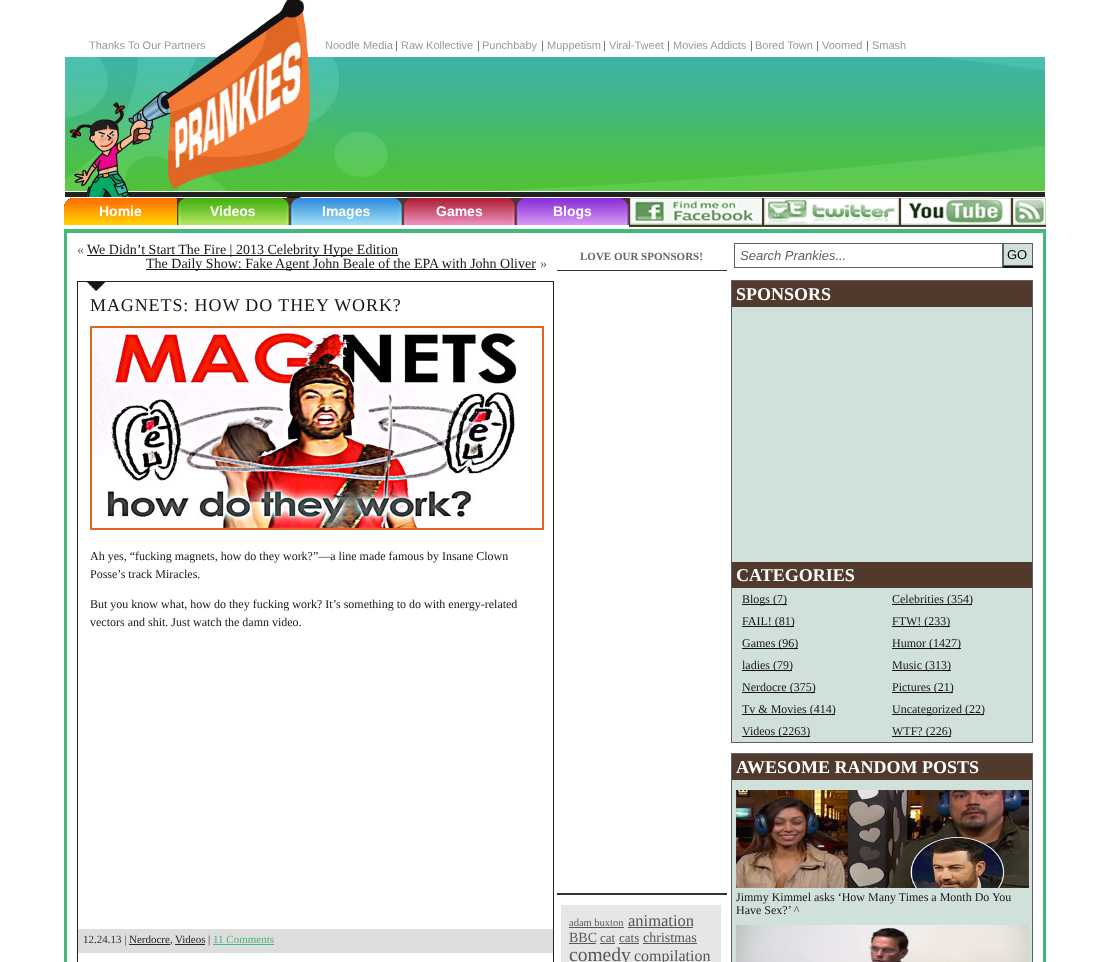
<svg xmlns="http://www.w3.org/2000/svg" width="1109" height="962">
<rect width="100%" height="100%" fill="#fff"/>
<image x="65" y="0" width="980" height="198" href="media/1.png"/>
<text x="89" y="49" style="font-family:Liberation Sans;font-size:11px;fill:#999">Thanks To Our Partners</text>
<text x="325" y="49" style="font-family:Liberation Sans;font-size:11px;fill:#999">Noodle Media</text>
<text x="395" y="49" style="font-family:Liberation Sans;font-size:11px;fill:#666">|</text>
<text x="401" y="49" style="font-family:Liberation Sans;font-size:11px;fill:#999">Raw Kollective</text>
<text x="477" y="49" style="font-family:Liberation Sans;font-size:11px;fill:#666">|</text>
<text x="482" y="49" style="font-family:Liberation Sans;font-size:11px;fill:#999">Punchbaby</text>
<text x="541" y="49" style="font-family:Liberation Sans;font-size:11px;fill:#666">|</text>
<text x="547" y="49" style="font-family:Liberation Sans;font-size:11px;fill:#999">Muppetism</text>
<text x="603" y="49" style="font-family:Liberation Sans;font-size:11px;fill:#666">|</text>
<text x="609" y="49" style="font-family:Liberation Sans;font-size:11px;fill:#999">Viral-Tweet</text>
<text x="667" y="49" style="font-family:Liberation Sans;font-size:11px;fill:#666">|</text>
<text x="673" y="49" style="font-family:Liberation Sans;font-size:11px;fill:#999">Movies Addicts</text>
<text x="750" y="49" style="font-family:Liberation Sans;font-size:11px;fill:#666">|</text>
<text x="755" y="49" style="font-family:Liberation Sans;font-size:11px;fill:#999">Bored Town</text>
<text x="816" y="49" style="font-family:Liberation Sans;font-size:11px;fill:#666">|</text>
<text x="822" y="49" style="font-family:Liberation Sans;font-size:11px;fill:#999">Voomed</text>
<text x="866" y="49" style="font-family:Liberation Sans;font-size:11px;fill:#666">|</text>
<text x="872" y="49" style="font-family:Liberation Sans;font-size:11px;fill:#999">Smash</text>
<image x="64" y="198" width="113" height="27" href="media/2.png"/>
<text x="99" y="216" style="font-family:Liberation Sans;font-size:14px;font-weight:bold;fill:#fff">Homie</text>
<image x="177" y="198" width="113" height="27" href="media/3.png"/>
<text x="210" y="216" style="font-family:Liberation Sans;font-size:14px;font-weight:bold;fill:#fff">Videos</text>
<image x="290" y="198" width="113" height="27" href="media/4.png"/>
<text x="322" y="216" style="font-family:Liberation Sans;font-size:14px;font-weight:bold;fill:#fff">Images</text>
<image x="403" y="198" width="113" height="27" href="media/5.png"/>
<text x="436" y="216" style="font-family:Liberation Sans;font-size:14px;font-weight:bold;fill:#fff">Games</text>
<image x="516" y="198" width="113" height="27" href="media/6.png"/>
<text x="553" y="216" style="font-family:Liberation Sans;font-size:14px;font-weight:bold;fill:#fff">Blogs</text>
<image x="629" y="198" width="135" height="29" href="media/7.png"/>
<image x="764" y="198" width="135" height="29" href="media/8.png"/>
<image x="899" y="198" width="112" height="29" href="media/9.png"/>
<image x="1011" y="198" width="35" height="29" href="media/10.png"/>
<rect x="64" y="229" width="982" height="4" fill="#44b878"/>
<rect x="1043" y="229" width="3" height="733" fill="#44b878"/>
<rect x="64" y="229" width="3" height="733" fill="#44b878"/>
<text x="77" y="254" style="font-family:Liberation Serif;font-size:14px;fill:#666">«</text>
<rect x="87" y="255" width="311" height="1" fill="#191614"/>
<text x="87" y="254" style="font-family:Liberation Serif;font-size:14px;fill:#191614">We Didn’t Start The Fire | 2013 Celebrity Hype Edition</text>
<rect x="146" y="269" width="390" height="1" fill="#191614"/>
<text x="146" y="268" style="font-family:Liberation Serif;font-size:14px;fill:#191614">The Daily Show: Fake Agent John Beale of the EPA with John Oliver</text>
<text x="540" y="268" style="font-family:Liberation Serif;font-size:14px;fill:#666">»</text>
<rect x="77.5" y="281.5" width="476" height="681" fill="none" stroke="#212121"/>
<image x="86" y="282" width="20" height="10" href="media/11.png"/>
<text x="90" y="311" style="font-family:Liberation Serif;font-size:18px;letter-spacing:0.9px;fill:#191614">MAGNETS: HOW DO THEY WORK?</text>
<rect x="91" y="327" width="452" height="202" fill="none" stroke="#df6522" stroke-width="2"/>
<image x="92" y="328" width="425" height="200" href="media/12.png"/>
<text x="90" y="560" style="font-family:Liberation Serif;font-size:12px;fill:#191614">Ah yes, “fucking magnets, how do they work?”—a line made famous by Insane Clown</text>
<text x="90" y="578" style="font-family:Liberation Serif;font-size:12px;fill:#191614">Posse’s track Miracles.</text>
<text x="90" y="608" style="font-family:Liberation Serif;font-size:12px;fill:#191614">But you know what, how do they fucking work? It’s something to do with energy-related</text>
<text x="90" y="626" style="font-family:Liberation Serif;font-size:12px;fill:#191614">vectors and shit. Just watch the damn video.</text>
<rect x="78" y="929" width="475" height="24" fill="#ddd"/>
<text x="83" y="943" style="font-family:Liberation Serif;font-size:11px;fill:#333">12.24.13 |</text>
<text x="129" y="943" style="font-family:Liberation Serif;font-size:11px;fill:#26272a">Nerdocre</text>
<rect x="129" y="944" width="41" height="1" fill="#26272a"/>
<text x="170" y="943" style="font-family:Liberation Serif;font-size:11px;fill:#333">,</text>
<text x="175" y="943" style="font-family:Liberation Serif;font-size:11px;fill:#26272a">Videos</text>
<rect x="175" y="944" width="30" height="1" fill="#26272a"/>
<text x="208" y="943" style="font-family:Liberation Serif;font-size:11px;fill:#333">|</text>
<text x="213" y="943" style="font-family:Liberation Serif;font-size:11px;fill:#44b878">11 Comments</text>
<rect x="213" y="944" width="61" height="1" fill="#44b878"/>
<rect x="557" y="270" width="170" height="1" fill="#333"/>
<text x="580" y="260" style="font-family:Liberation Serif;font-size:11px;font-weight:bold;fill:#666">LOVE OUR SPONSORS!</text>
<rect x="557" y="893" width="170" height="2" fill="#333"/>
<rect x="561" y="905" width="160" height="57" fill="#e6e6e6"/>
<text x="569" y="926" style="font-family:Liberation Serif;font-size:10.5px;fill:#575757">adam buxton</text>
<rect x="569" y="927" width="55" height="1" fill="#575757"/>
<text x="628" y="926" style="font-family:Liberation Serif;font-size:16.5px;fill:#575757">animation</text>
<rect x="628" y="927" width="65" height="1" fill="#575757"/>
<text x="569" y="942" style="font-family:Liberation Serif;font-size:14px;fill:#575757">BBC</text>
<rect x="569" y="943" width="27" height="1" fill="#575757"/>
<text x="600" y="942" style="font-family:Liberation Serif;font-size:13px;fill:#575757">cat</text>
<rect x="600" y="943" width="15" height="1" fill="#575757"/>
<text x="619" y="942" style="font-family:Liberation Serif;font-size:13px;fill:#575757">cats</text>
<rect x="619" y="943" width="20" height="1" fill="#575757"/>
<text x="643" y="942" style="font-family:Liberation Serif;font-size:14px;fill:#575757">christmas</text>
<rect x="643" y="943" width="54" height="1" fill="#575757"/>
<text x="569" y="961" style="font-family:Liberation Serif;font-size:19.5px;fill:#575757">comedy</text>
<text x="634" y="961" style="font-family:Liberation Serif;font-size:16px;fill:#575757">compilation</text>
<rect x="1003" y="266" width="30" height="2" fill="#141419"/>
<rect x="734.5" y="243.5" width="268" height="24" fill="none" stroke="#5e6168"/>
<text x="740" y="260" style="font-family:Liberation Sans;font-size:13px;font-style:italic;fill:#5e6168">Search Prankies...</text>
<rect x="1003.5" y="243.5" width="29" height="22" fill="#d0e0db" stroke="#5e6168"/>
<text x="1007" y="259" style="font-family:Liberation Sans;font-size:13px;fill:#000">GO</text>
<rect x="732" y="307" width="300" height="435" fill="#d0e0db"/>
<rect x="731.5" y="280.5" width="301" height="462" fill="none" stroke="#5e6168"/>
<rect x="732" y="281" width="300" height="26" fill="#51392c"/>
<text x="736" y="300" style="font-family:Liberation Serif;font-size:18px;font-weight:bold;fill:#fff">SPONSORS</text>
<rect x="732" y="562" width="300" height="26" fill="#51392c"/>
<text x="736" y="581" style="font-family:Liberation Serif;font-size:18px;font-weight:bold;fill:#fff">CATEGORIES</text>
<rect x="742" y="604" width="45" height="1" fill="#141419"/>
<text x="742" y="603" style="font-family:Liberation Serif;font-size:12px;fill:#191614">Blogs (7)</text>
<rect x="892" y="604" width="80" height="1" fill="#141419"/>
<text x="892" y="603" style="font-family:Liberation Serif;font-size:12px;fill:#191614">Celebrities (354)</text>
<rect x="742" y="626" width="52" height="1" fill="#141419"/>
<text x="742" y="625" style="font-family:Liberation Serif;font-size:12px;fill:#191614">FAIL! (81)</text>
<rect x="892" y="626" width="58" height="1" fill="#141419"/>
<text x="892" y="625" style="font-family:Liberation Serif;font-size:12px;fill:#191614">FTW! (233)</text>
<rect x="742" y="648" width="56" height="1" fill="#141419"/>
<text x="742" y="647" style="font-family:Liberation Serif;font-size:12px;fill:#191614">Games (96)</text>
<rect x="892" y="648" width="69" height="1" fill="#141419"/>
<text x="892" y="647" style="font-family:Liberation Serif;font-size:12px;fill:#191614">Humor (1427)</text>
<rect x="742" y="670" width="50" height="1" fill="#141419"/>
<text x="742" y="669" style="font-family:Liberation Serif;font-size:12px;fill:#191614">ladies (79)</text>
<rect x="892" y="670" width="59" height="1" fill="#141419"/>
<text x="892" y="669" style="font-family:Liberation Serif;font-size:12px;fill:#191614">Music (313)</text>
<rect x="742" y="692" width="73" height="1" fill="#141419"/>
<text x="742" y="691" style="font-family:Liberation Serif;font-size:12px;fill:#191614">Nerdocre (375)</text>
<rect x="892" y="692" width="61" height="1" fill="#141419"/>
<text x="892" y="691" style="font-family:Liberation Serif;font-size:12px;fill:#191614">Pictures (21)</text>
<rect x="742" y="714" width="93" height="1" fill="#141419"/>
<text x="742" y="713" style="font-family:Liberation Serif;font-size:12px;fill:#191614">Tv &amp; Movies (414)</text>
<rect x="892" y="714" width="92" height="1" fill="#141419"/>
<text x="892" y="713" style="font-family:Liberation Serif;font-size:12px;fill:#191614">Uncategorized (22)</text>
<rect x="742" y="736" width="68" height="1" fill="#141419"/>
<text x="742" y="735" style="font-family:Liberation Serif;font-size:12px;fill:#191614">Videos (2263)</text>
<rect x="892" y="736" width="59" height="1" fill="#141419"/>
<text x="892" y="735" style="font-family:Liberation Serif;font-size:12px;fill:#191614">WTF? (226)</text>
<rect x="732" y="780" width="300" height="182" fill="#d0e0db"/>
<rect x="731.5" y="753.5" width="301" height="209" fill="none" stroke="#5e6168"/>
<rect x="732" y="754" width="300" height="26" fill="#51392c"/>
<text x="736" y="773" style="font-family:Liberation Serif;font-size:18px;font-weight:bold;fill:#fff">AWESOME RANDOM POSTS</text>
<image x="736" y="790" width="293" height="98" href="media/13.png"/>
<text x="736" y="901" style="font-family:Liberation Serif;font-size:12px;fill:#191614">Jimmy Kimmel asks ‘How Many Times a Month Do You</text>
<text x="736" y="914" style="font-family:Liberation Serif;font-size:12px;fill:#191614">Have Sex?’ ^</text>
<image x="736" y="925" width="293" height="37" href="media/14.png"/>
</svg>
